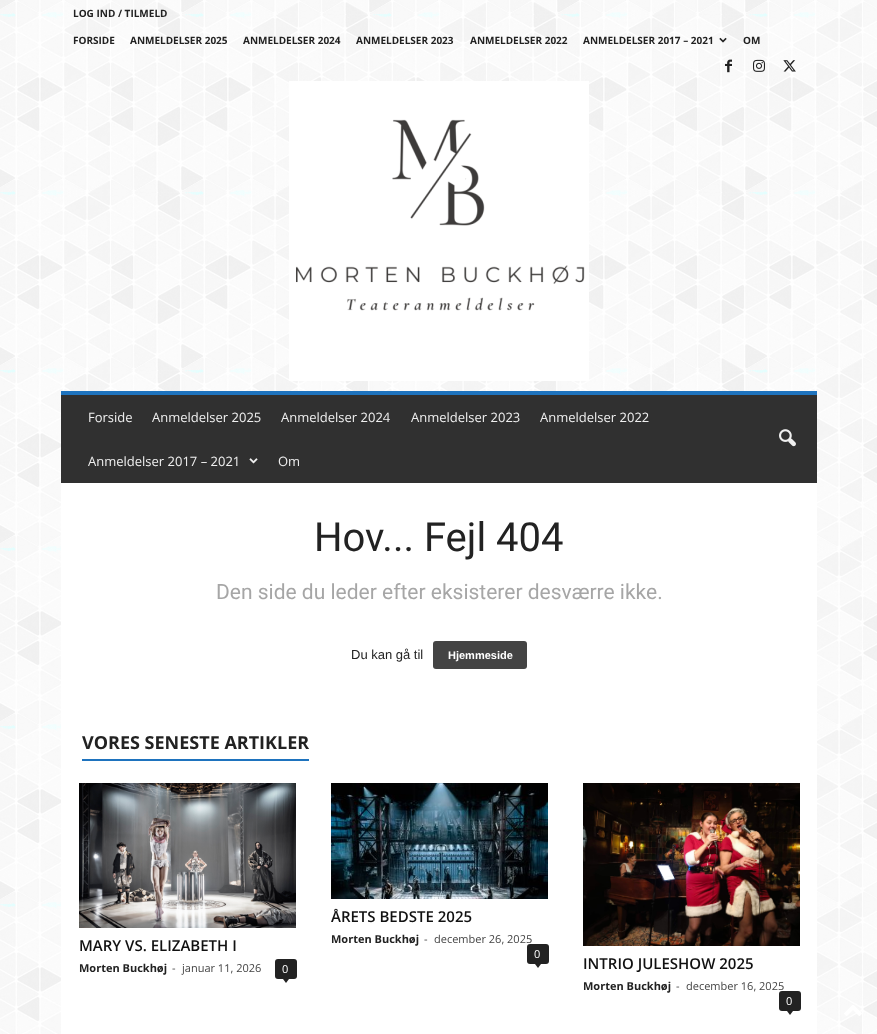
<svg xmlns="http://www.w3.org/2000/svg" width="877" height="1034">
<rect width="100%" height="100%" fill="#fff"/>
<image x="0" y="0" width="877" height="1034" href="media/1.png"/>
<text x="73" y="17" style="font-family:Open Sans;font-size:10px;font-weight:bold;fill:#222">LOG IND / TILMELD</text>
<text x="73" y="44" style="font-family:Open Sans;font-size:10px;font-weight:bold;fill:#222">FORSIDE</text>
<text x="130" y="44" style="font-family:Open Sans;font-size:10px;font-weight:bold;fill:#222">ANMELDELSER 2025</text>
<text x="243" y="44" style="font-family:Open Sans;font-size:10px;font-weight:bold;fill:#222">ANMELDELSER 2024</text>
<text x="356" y="44" style="font-family:Open Sans;font-size:10px;font-weight:bold;fill:#222">ANMELDELSER 2023</text>
<text x="470" y="44" style="font-family:Open Sans;font-size:10px;font-weight:bold;fill:#222">ANMELDELSER 2022</text>
<text x="583" y="44" style="font-family:Open Sans;font-size:10px;font-weight:bold;fill:#222">ANMELDELSER 2017 – 2021</text>
<image x="719" y="37" width="8" height="6" href="media/2.png"/>
<text x="743" y="44" style="font-family:Open Sans;font-size:10px;font-weight:bold;fill:#222">OM</text>
<image x="725" y="59" width="7" height="14" href="media/3.png"/>
<image x="753" y="59" width="12" height="13" href="media/4.png"/>
<image x="783" y="60" width="13" height="12" href="media/5.png"/>
<image x="289" y="81" width="300" height="300" href="media/6.png"/>
<rect x="61" y="395" width="756" height="88" fill="#303030"/>
<rect x="61" y="391" width="756" height="4" fill="#1e73be"/>
<text x="88" y="422" style="font-family:Open Sans;font-size:13px;fill:#efefef">Forside</text>
<text x="152" y="422" style="font-family:Open Sans;font-size:13px;fill:#efefef">Anmeldelser 2025</text>
<text x="281" y="422" style="font-family:Open Sans;font-size:13px;fill:#efefef">Anmeldelser 2024</text>
<text x="411" y="422" style="font-family:Open Sans;font-size:13px;fill:#efefef">Anmeldelser 2023</text>
<text x="540" y="422" style="font-family:Open Sans;font-size:13px;fill:#efefef">Anmeldelser 2022</text>
<text x="88" y="466" style="font-family:Open Sans;font-size:13px;fill:#efefef">Anmeldelser 2017 – 2021</text>
<image x="249" y="458" width="9" height="6" href="media/7.png"/>
<text x="278" y="466" style="font-family:Open Sans;font-size:13px;fill:#efefef">Om</text>
<image x="779" y="429" width="17" height="18" href="media/8.png"/>
<rect x="61" y="483" width="756" height="551" fill="#fff"/>
<text x="314" y="551" style="font-family:Roboto;font-size:40px;fill:#222">Hov... Fejl 404</text>
<text x="216" y="599" style="font-family:Roboto;font-size:21px;fill:#a6a6a6">Den side du leder efter eksisterer desværre ikke.</text>
<text x="351" y="659" style="font-family:Liberation Sans;font-size:13px;fill:#222">Du kan gå til</text>
<rect x="433" y="641" width="94" height="28" rx="3" fill="#444"/>
<text x="448" y="659" style="font-family:Liberation Sans;font-size:11px;font-weight:bold;fill:#fff">Hjemmeside</text>
<text x="82" y="749" style="font-family:Open Sans;font-size:18px;font-weight:bold;fill:#222">VORES SENESTE ARTIKLER</text>
<rect x="82" y="759" width="227" height="2" fill="#1e73be"/>
<image x="79" y="783" width="217" height="145" href="media/9.png"/>
<text x="79" y="951" style="font-family:Open Sans;font-size:15px;font-weight:600;fill:#111">MARY VS. ELIZABETH I</text>
<text x="79" y="972" style="font-family:Open Sans;font-size:11px;font-weight:bold;fill:#222">Morten Buckhøj</text>
<text x="172" y="972" style="font-family:Open Sans;font-size:11px;fill:#444">-</text>
<text x="182" y="972" style="font-family:Open Sans;font-size:11px;fill:#444">januar 11, 2026</text>
<rect x="275" y="959" width="22" height="20" rx="3" fill="#222"/>
<text x="282" y="973" style="font-family:Open Sans;font-size:11px;fill:#fff">0</text>
<path d="M283 979h6l-3 4z" fill="#222"/>
<image x="331" y="783" width="217" height="116" href="media/10.png"/>
<text x="331" y="922" style="font-family:Open Sans;font-size:15px;font-weight:600;fill:#111">ÅRETS BEDSTE 2025</text>
<text x="331" y="943" style="font-family:Open Sans;font-size:11px;font-weight:bold;fill:#222">Morten Buckhøj</text>
<text x="424" y="943" style="font-family:Open Sans;font-size:11px;fill:#444">-</text>
<text x="434" y="943" style="font-family:Open Sans;font-size:11px;fill:#444">december 26, 2025</text>
<rect x="527" y="944" width="22" height="20" rx="3" fill="#222"/>
<text x="534" y="958" style="font-family:Open Sans;font-size:11px;fill:#fff">0</text>
<path d="M535 964h6l-3 4z" fill="#222"/>
<image x="583" y="783" width="217" height="163" href="media/11.png"/>
<text x="583" y="969" style="font-family:Open Sans;font-size:15px;font-weight:600;fill:#111">INTRIO JULESHOW 2025</text>
<text x="583" y="990" style="font-family:Open Sans;font-size:11px;font-weight:bold;fill:#222">Morten Buckhøj</text>
<text x="676" y="990" style="font-family:Open Sans;font-size:11px;fill:#444">-</text>
<text x="686" y="990" style="font-family:Open Sans;font-size:11px;fill:#444">december 16, 2025</text>
<rect x="779" y="991" width="22" height="20" rx="3" fill="#222"/>
<text x="786" y="1005" style="font-family:Open Sans;font-size:11px;fill:#fff">0</text>
<path d="M787 1011h6l-3 4z" fill="#222"/>
<image x="844" y="1005" width="18" height="11" href="media/12.png"/>
</svg>
